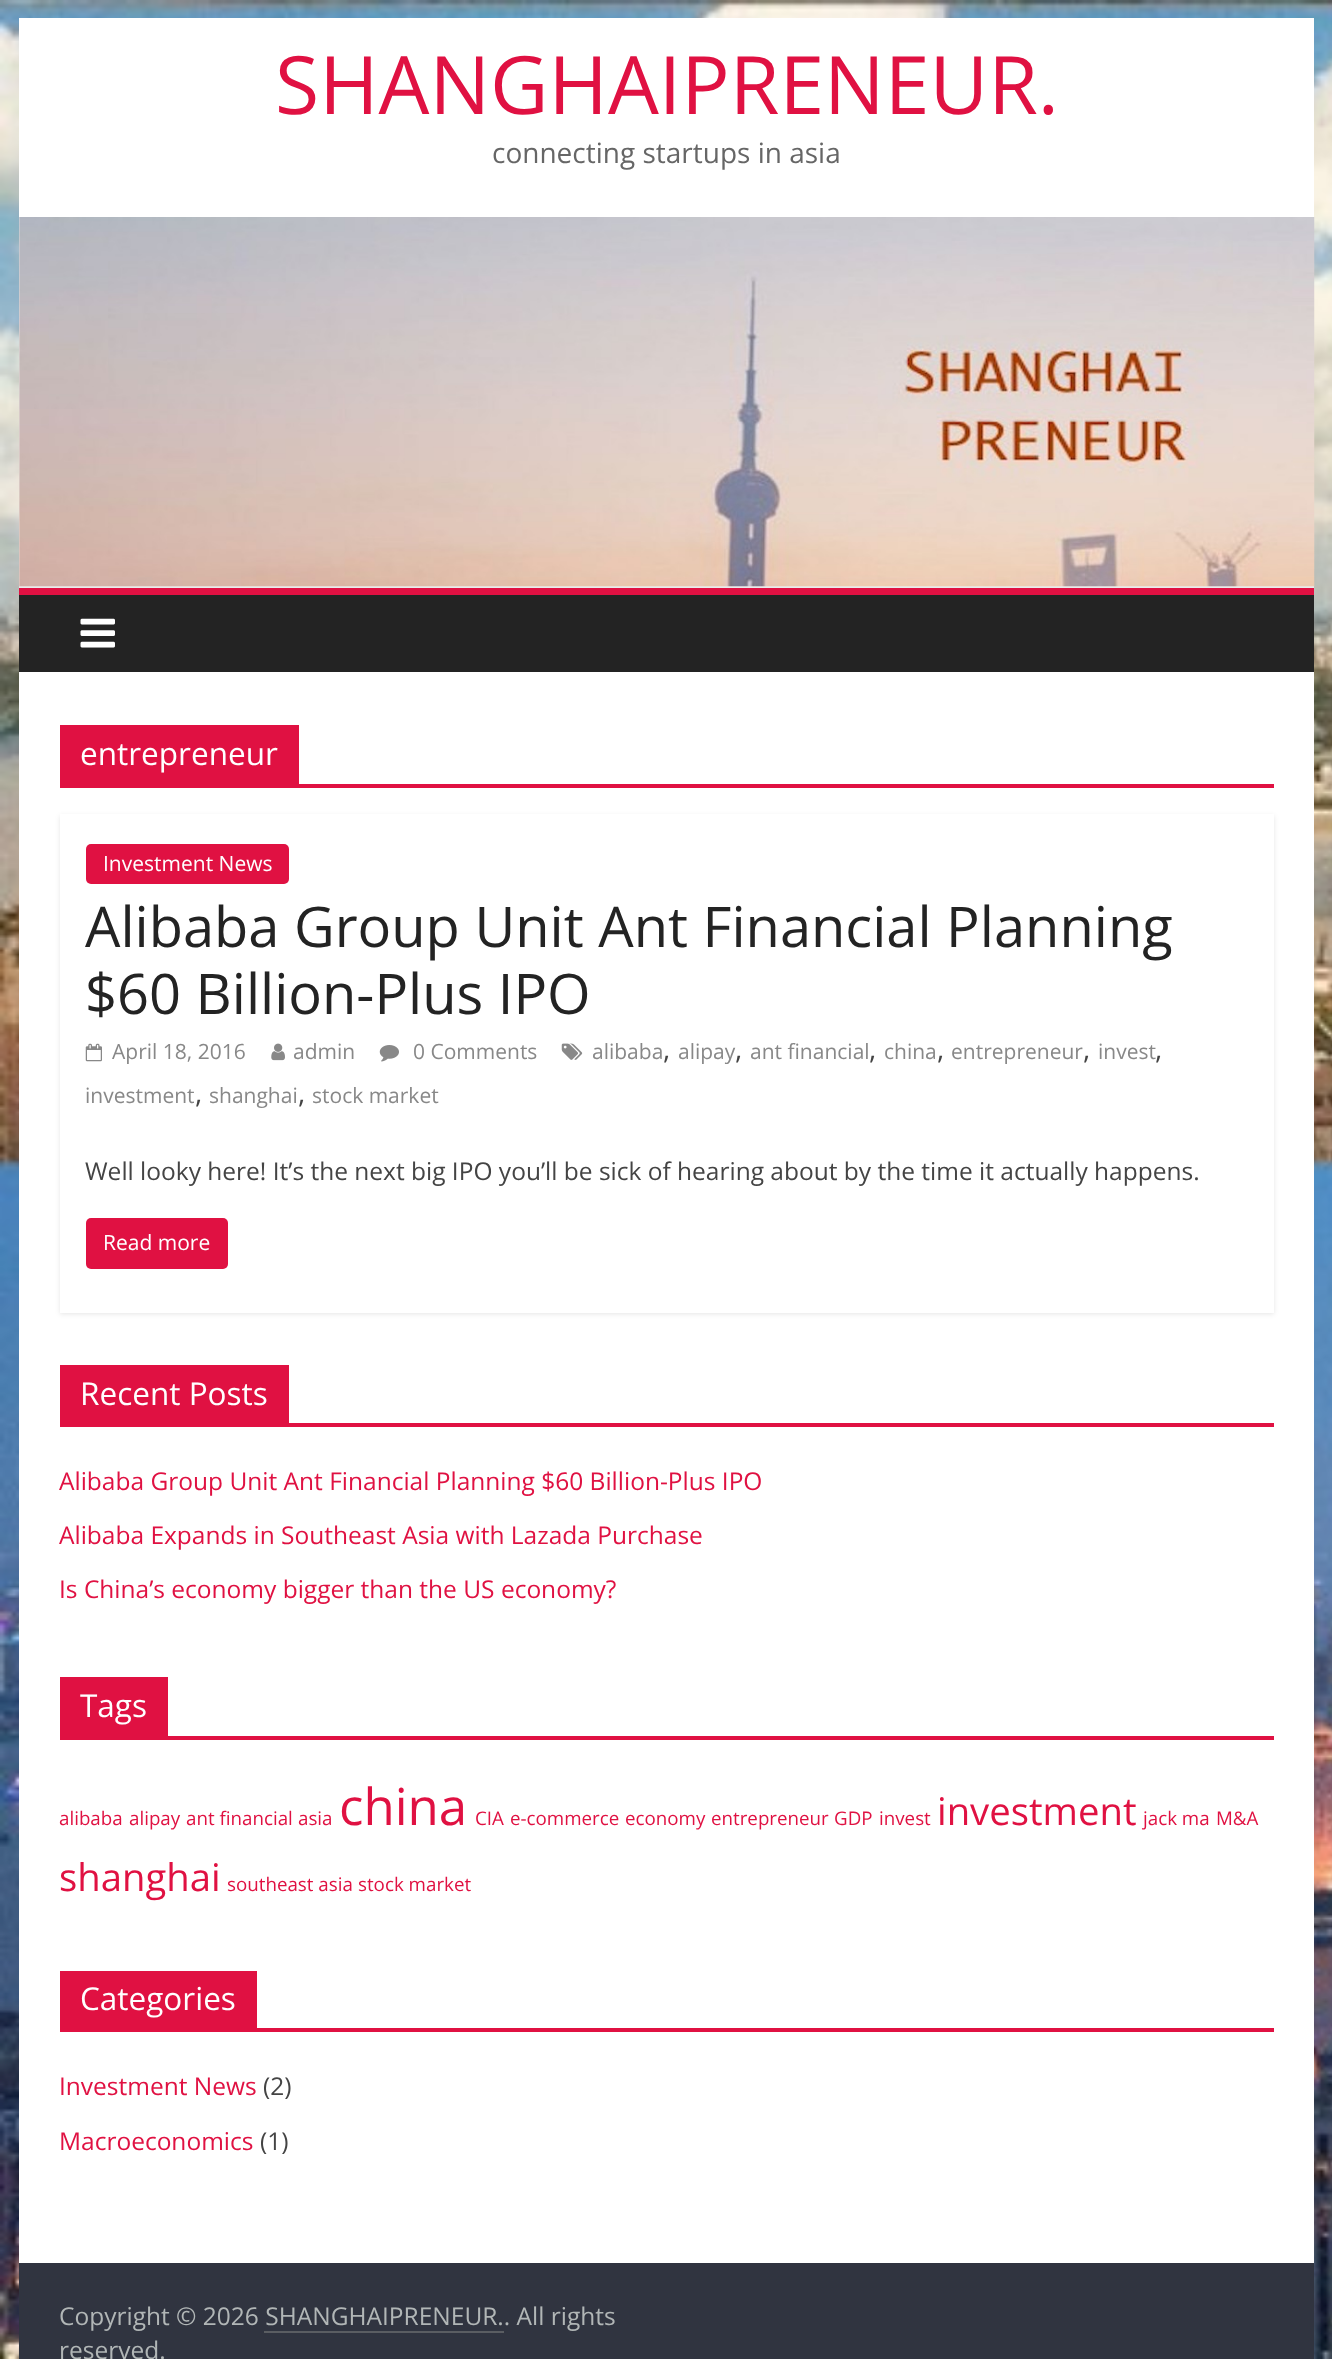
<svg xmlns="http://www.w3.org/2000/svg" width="1332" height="2359">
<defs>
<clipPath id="clip1"><path d="M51 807h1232v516h-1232zm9 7h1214v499h-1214z" clip-rule="evenodd"/></clipPath>
</defs>
<rect width="100%" height="100%" fill="#fff"/>
<image x="0" y="0" width="1332" height="2359" href="media/1.png"/>
<rect x="19" y="18" width="1295" height="568" fill="#fff"/>
<text x="275" y="114" style="font-family:Open Sans;font-size:80.5px;fill:#e01142">SHANGHAIPRENEUR.</text>
<text x="492" y="163" style="font-family:Open Sans;font-size:28px;fill:#666">connecting startups in asia</text>
<rect x="19" y="586" width="1295" height="2" fill="#eaeaea"/>
<image x="19" y="217" width="1296" height="370" href="media/2.png"/>
<rect x="19" y="595" width="1295" height="77" fill="#232323"/>
<rect x="19" y="588" width="1295" height="7" fill="#e01142"/>
<image x="80" y="618" width="35" height="30" href="media/3.png"/>
<rect x="19" y="672" width="1295" height="1591" fill="#fff"/>
<rect x="60" y="784" width="1214" height="4" fill="#e01142"/>
<rect x="60" y="725" width="239" height="59" fill="#e01142"/>
<text x="80" y="765" style="font-family:Open Sans;font-size:31.5px;fill:#fff">entrepreneur</text>
<g clip-path="url(#clip1)">
<rect x="60" y="816" width="1214" height="498" fill="#0000001a" filter="blur(2.5px)"/>
</g>
<rect x="86" y="844" width="203" height="40" rx="5" fill="#e01142"/>
<text x="103" y="871" style="font-family:Open Sans;font-size:21px;fill:#fff">Investment News</text>
<text x="85" y="947" style="font-family:Open Sans;font-size:56px;fill:#232323">Alibaba Group Unit Ant Financial Planning</text>
<text x="85" y="1014" style="font-family:Open Sans;font-size:56px;fill:#232323">$60 Billion-Plus IPO</text>
<image x="561" y="1043" width="22" height="17" href="media/4.png"/>
<text x="592" y="1059" style="font-family:Open Sans;font-size:21px;fill:#888">alibaba</text>
<text x="663" y="1059" style="font-family:Open Sans;font-size:28px;fill:#444">,</text>
<text x="678" y="1059" style="font-family:Open Sans;font-size:21px;fill:#888">alipay</text>
<text x="735" y="1059" style="font-family:Open Sans;font-size:28px;fill:#444">,</text>
<text x="750" y="1059" style="font-family:Open Sans;font-size:21px;fill:#888">ant financial</text>
<text x="869" y="1059" style="font-family:Open Sans;font-size:28px;fill:#444">,</text>
<text x="884" y="1059" style="font-family:Open Sans;font-size:21px;fill:#888">china</text>
<text x="937" y="1059" style="font-family:Open Sans;font-size:28px;fill:#444">,</text>
<text x="951" y="1059" style="font-family:Open Sans;font-size:21px;fill:#888">entrepreneur</text>
<text x="1083" y="1059" style="font-family:Open Sans;font-size:28px;fill:#444">,</text>
<text x="1098" y="1059" style="font-family:Open Sans;font-size:21px;fill:#888">invest</text>
<text x="1155" y="1059" style="font-family:Open Sans;font-size:28px;fill:#444">,</text>
<text x="85" y="1103" style="font-family:Open Sans;font-size:21px;fill:#888">investment</text>
<text x="195" y="1103" style="font-family:Open Sans;font-size:28px;fill:#444">,</text>
<text x="209" y="1103" style="font-family:Open Sans;font-size:21px;fill:#888">shanghai</text>
<text x="298" y="1103" style="font-family:Open Sans;font-size:28px;fill:#444">,</text>
<text x="312" y="1103" style="font-family:Open Sans;font-size:21px;fill:#888">stock market</text>
<image x="85" y="1043" width="17" height="19" href="media/5.png"/>
<text x="112" y="1059" style="font-family:Open Sans;font-size:21px;fill:#888">April 18, 2016</text>
<image x="271" y="1043" width="14" height="18" href="media/6.png"/>
<text x="293" y="1059" style="font-family:Open Sans;font-size:21px;fill:#888">admin</text>
<image x="379" y="1045" width="20" height="17" href="media/7.png"/>
<text x="413" y="1059" style="font-family:Open Sans;font-size:21px;fill:#888">0 Comments</text>
<text x="85" y="1180" style="font-family:Open Sans;font-size:24.5px;fill:#444">Well looky here! It’s the next big IPO you’ll be sick of hearing about by the time it actually happens.</text>
<rect x="86" y="1218" width="142" height="51" rx="5" fill="#e01142"/>
<text x="103" y="1250" style="font-family:Open Sans;font-size:21px;fill:#fff">Read more</text>
<rect x="60" y="1423" width="1214" height="4" fill="#e01142"/>
<rect x="60" y="1365" width="229" height="58" fill="#e01142"/>
<text x="80" y="1405" style="font-family:Open Sans;font-size:31.5px;fill:#fff">Recent Posts</text>
<text x="59" y="1490" style="font-family:Open Sans;font-size:24.5px;fill:#e01142">Alibaba Group Unit Ant Financial Planning $60 Billion-Plus IPO</text>
<text x="59" y="1544" style="font-family:Open Sans;font-size:24.5px;fill:#e01142">Alibaba Expands in Southeast Asia with Lazada Purchase</text>
<text x="59" y="1598" style="font-family:Open Sans;font-size:24.5px;fill:#e01142">Is China’s economy bigger than the US economy?</text>
<rect x="60" y="1736" width="1214" height="4" fill="#e01142"/>
<rect x="60" y="1677" width="108" height="59" fill="#e01142"/>
<text x="80" y="1717" style="font-family:Open Sans;font-size:31.5px;fill:#fff">Tags</text>
<text x="59" y="1825" style="font-family:Open Sans;font-size:18.75px;fill:#e01142">alibaba</text>
<text x="129" y="1825" style="font-family:Open Sans;font-size:18.75px;fill:#e01142">alipay</text>
<text x="186" y="1825" style="font-family:Open Sans;font-size:18.75px;fill:#e01142">ant financial</text>
<text x="298" y="1825" style="font-family:Open Sans;font-size:18.75px;fill:#e01142">asia</text>
<text x="339" y="1825" style="font-family:Open Sans;font-size:51px;fill:#e01142">china</text>
<text x="475" y="1825" style="font-family:Open Sans;font-size:18.75px;fill:#e01142">CIA</text>
<text x="510" y="1825" style="font-family:Open Sans;font-size:18.75px;fill:#e01142">e-commerce</text>
<text x="625" y="1825" style="font-family:Open Sans;font-size:18.75px;fill:#e01142">economy</text>
<text x="711" y="1825" style="font-family:Open Sans;font-size:18.75px;fill:#e01142">entrepreneur</text>
<text x="834" y="1825" style="font-family:Open Sans;font-size:18.75px;fill:#e01142">GDP</text>
<text x="879" y="1825" style="font-family:Open Sans;font-size:18.75px;fill:#e01142">invest</text>
<text x="937" y="1825" style="font-family:Open Sans;font-size:38.25px;fill:#e01142">investment</text>
<text x="1143" y="1825" style="font-family:Open Sans;font-size:18.75px;fill:#e01142">jack ma</text>
<text x="1216" y="1825" style="font-family:Open Sans;font-size:18.75px;fill:#e01142">M&amp;A</text>
<text x="59" y="1891" style="font-family:Open Sans;font-size:38.25px;fill:#e01142">shanghai</text>
<text x="227" y="1891" style="font-family:Open Sans;font-size:18.75px;fill:#e01142">southeast asia</text>
<text x="358" y="1891" style="font-family:Open Sans;font-size:18.75px;fill:#e01142">stock market</text>
<rect x="60" y="2028" width="1214" height="4" fill="#e01142"/>
<rect x="60" y="1971" width="197" height="57" fill="#e01142"/>
<text x="80" y="2010" style="font-family:Open Sans;font-size:31.5px;fill:#fff">Categories</text>
<text x="59" y="2095" style="font-family:Open Sans;font-size:24.5px;fill:#e01142">Investment News</text>
<text x="263" y="2095" style="font-family:Open Sans;font-size:24.5px;fill:#444">(2)</text>
<text x="59" y="2150" style="font-family:Open Sans;font-size:24.5px;fill:#e01142">Macroeconomics</text>
<text x="260" y="2150" style="font-family:Open Sans;font-size:24.5px;fill:#444">(1)</text>
<rect x="19" y="2263" width="1295" height="96" fill="#303440"/>
<text x="59" y="2325" style="font-family:Open Sans;font-size:24.5px;fill:#b1b6b6">Copyright © 2026 SHANGHAIPRENEUR.. All rights</text>
<rect x="264" y="2331" width="240" height="2" fill="#5a5d62"/>
<text x="59" y="2359" style="font-family:Open Sans;font-size:24.5px;fill:#b1b6b6">reserved.</text>
</svg>
